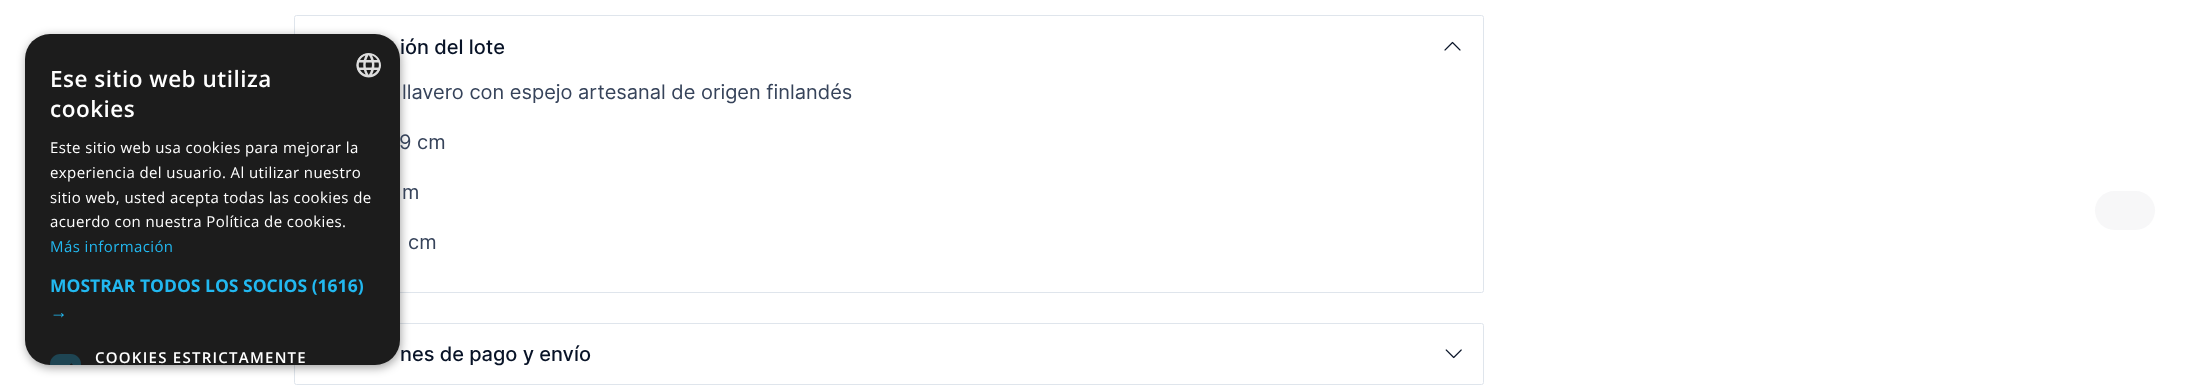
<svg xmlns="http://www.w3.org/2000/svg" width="2187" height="389">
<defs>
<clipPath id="clip1"><rect x="25" y="34" width="375" height="331" rx="25"/></clipPath>
</defs>
<rect width="100%" height="100%" fill="#fff"/>
<rect x="294.5" y="15.5" width="1189" height="277" rx="2" fill="none" stroke="#dfe5ec"/>
<rect x="294.5" y="323.5" width="1189" height="61" rx="2" fill="none" stroke="#dfe5ec"/>
<rect x="26" y="36" width="375" height="332" rx="25" fill="#00000059" filter="blur(5px)"/>
<rect x="25" y="34" width="375" height="331" rx="25" fill="#1c1c1c"/>
<image x="356" y="53" width="25" height="25" href="media/1.png"/>
<text x="50" y="87" style="font-family:Open Sans;font-size:22.5px;font-weight:600;letter-spacing:0.5px;fill:#fff">Ese sitio web utiliza</text>
<text x="50" y="117" style="font-family:Open Sans;font-size:22.5px;font-weight:600;letter-spacing:0.5px;fill:#fff">cookies</text>
<text x="50" y="153" style="font-family:Open Sans;font-size:15px;letter-spacing:0.4px;fill:#fff">Este sitio web usa cookies para mejorar la</text>
<text x="50" y="178" style="font-family:Open Sans;font-size:15px;letter-spacing:0.4px;fill:#fff">experiencia del usuario. Al utilizar nuestro</text>
<text x="50" y="203" style="font-family:Open Sans;font-size:15px;letter-spacing:0.4px;fill:#fff">sitio web, usted acepta todas las cookies de</text>
<text x="50" y="227" style="font-family:Open Sans;font-size:15px;letter-spacing:0.4px;fill:#fff">acuerdo con nuestra Política de cookies.</text>
<text x="50" y="252" style="font-family:Open Sans;font-size:15px;letter-spacing:0.4px;fill:#22b8f0">Más información</text>
<text x="50" y="292" style="font-family:Open Sans;font-size:17.5px;font-weight:bold;fill:#22b8f0">MOSTRAR TODOS LOS SOCIOS (1616)</text>
<text x="50" y="318" style="font-family:Liberation Sans;font-size:17.5px;font-weight:bold;fill:#22b8f0">→</text>
<path d="M60 354h11c5.5 0 10 4.5 10 10v1h-31v-1c0-5.5 4.5-10 10-10z" fill="#1e4553"/>
<g clip-path="url(#clip1)">
<path d="M58.5 370l4.5 4l9.5-9.5" fill="none" stroke="#1c1c1c" stroke-width="3.3"/>
</g>
<text x="95" y="363" style="font-family:Open Sans;font-size:15px;font-weight:600;letter-spacing:1.25px;fill:#fff">COOKIES ESTRICTAMENTE</text>
<text x="400" y="54" style="font-family:Inter;font-size:20px;font-weight:500;fill:#081327">ión del lote</text>
<image x="1444" y="41" width="17" height="10" href="media/2.png"/>
<text x="402" y="99" style="font-family:Inter;font-size:20px;fill:#36435a">llavero con espejo artesanal de origen finlandés</text>
<text x="399" y="149" style="font-family:Inter;font-size:20px;fill:#36435a">9 cm</text>
<text x="402" y="199" style="font-family:Inter;font-size:20px;fill:#36435a">m</text>
<text x="408" y="249" style="font-family:Inter;font-size:20px;fill:#36435a">cm</text>
<text x="400" y="361" style="font-family:Inter;font-size:20px;font-weight:500;fill:#081327">nes de pago y envío</text>
<image x="1445" y="349" width="17" height="10" href="media/3.png"/>
<rect x="2095" y="191" width="60" height="39" rx="19.5" fill="#f7f7f8"/>
</svg>
